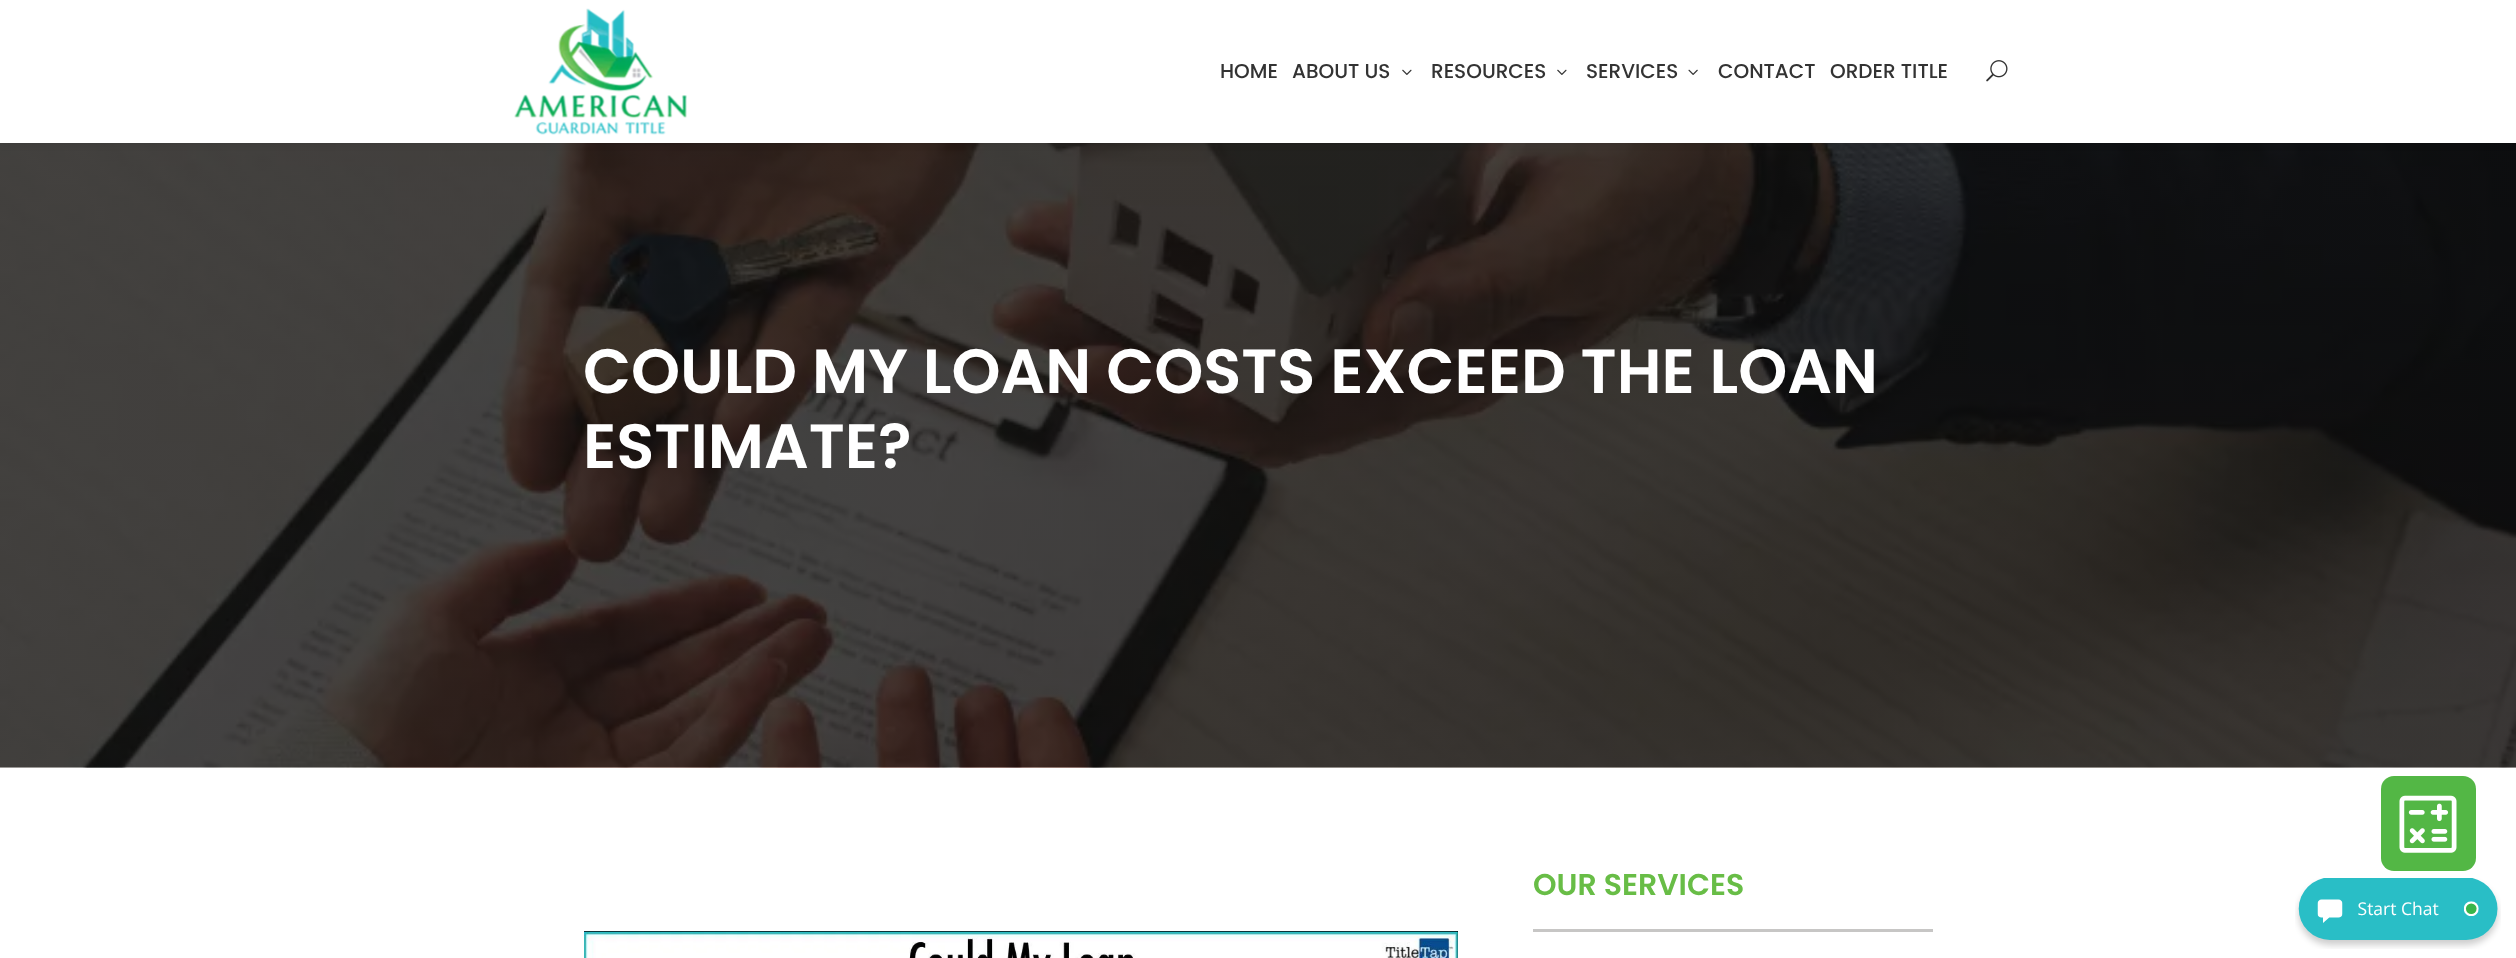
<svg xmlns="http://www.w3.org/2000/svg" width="2516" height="958">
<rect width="100%" height="100%" fill="#fff"/>
<image x="0" y="143" width="2516" height="625" href="media/5.png"/>
<rect width="2516" height="143" fill="#0000001a" filter="blur(4.5px)"/>
<rect width="2516" height="143" fill="#fff"/>
<image x="514" y="8" width="173" height="127" href="media/1.png"/>
<text x="1220" y="78" style="font-family:Poppins;font-size:20px;font-weight:500;fill:#333">HOME</text>
<text x="1292" y="78" style="font-family:Poppins;font-size:20px;font-weight:500;fill:#333">ABOUT US</text>
<image x="1402" y="69" width="10" height="6" href="media/2.png"/>
<text x="1431" y="78" style="font-family:Poppins;font-size:20px;font-weight:500;fill:#333">RESOURCES</text>
<image x="1557" y="69" width="10" height="6" href="media/2.png"/>
<text x="1586" y="78" style="font-family:Poppins;font-size:20px;font-weight:500;fill:#333">SERVICES</text>
<image x="1688" y="69" width="10" height="6" href="media/3.png"/>
<text x="1718" y="78" style="font-family:Poppins;font-size:20px;font-weight:500;fill:#333">CONTACT</text>
<text x="1830" y="78" style="font-family:Poppins;font-size:20px;font-weight:500;fill:#333">ORDER TITLE</text>
<image x="1986" y="60" width="22" height="22" href="media/4.png"/>
<text x="583" y="393" style="font-family:Poppins;font-size:62.5px;font-weight:600;fill:#fff">COULD MY LOAN COSTS EXCEED THE LOAN</text>
<text x="583" y="468" style="font-family:Poppins;font-size:62.5px;font-weight:600;fill:#fff">ESTIMATE?</text>
<text x="1533" y="895" style="font-family:Poppins;font-size:30px;font-weight:600;fill:#68bd46">OUR SERVICES</text>
<rect x="1533" y="929" width="400" height="3" fill="#c7c6c5"/>
<rect x="584" y="931" width="874" height="27" fill="#000"/>
<image x="584" y="931" width="874" height="27" href="media/6.png"/>
<rect x="2381" y="776" width="95" height="95" rx="13" fill="#53b745"/>
<image x="2399" y="795" width="58" height="58" href="media/7.png"/>
<image x="2295" y="878" width="206" height="71" href="media/8.png"/>
</svg>
